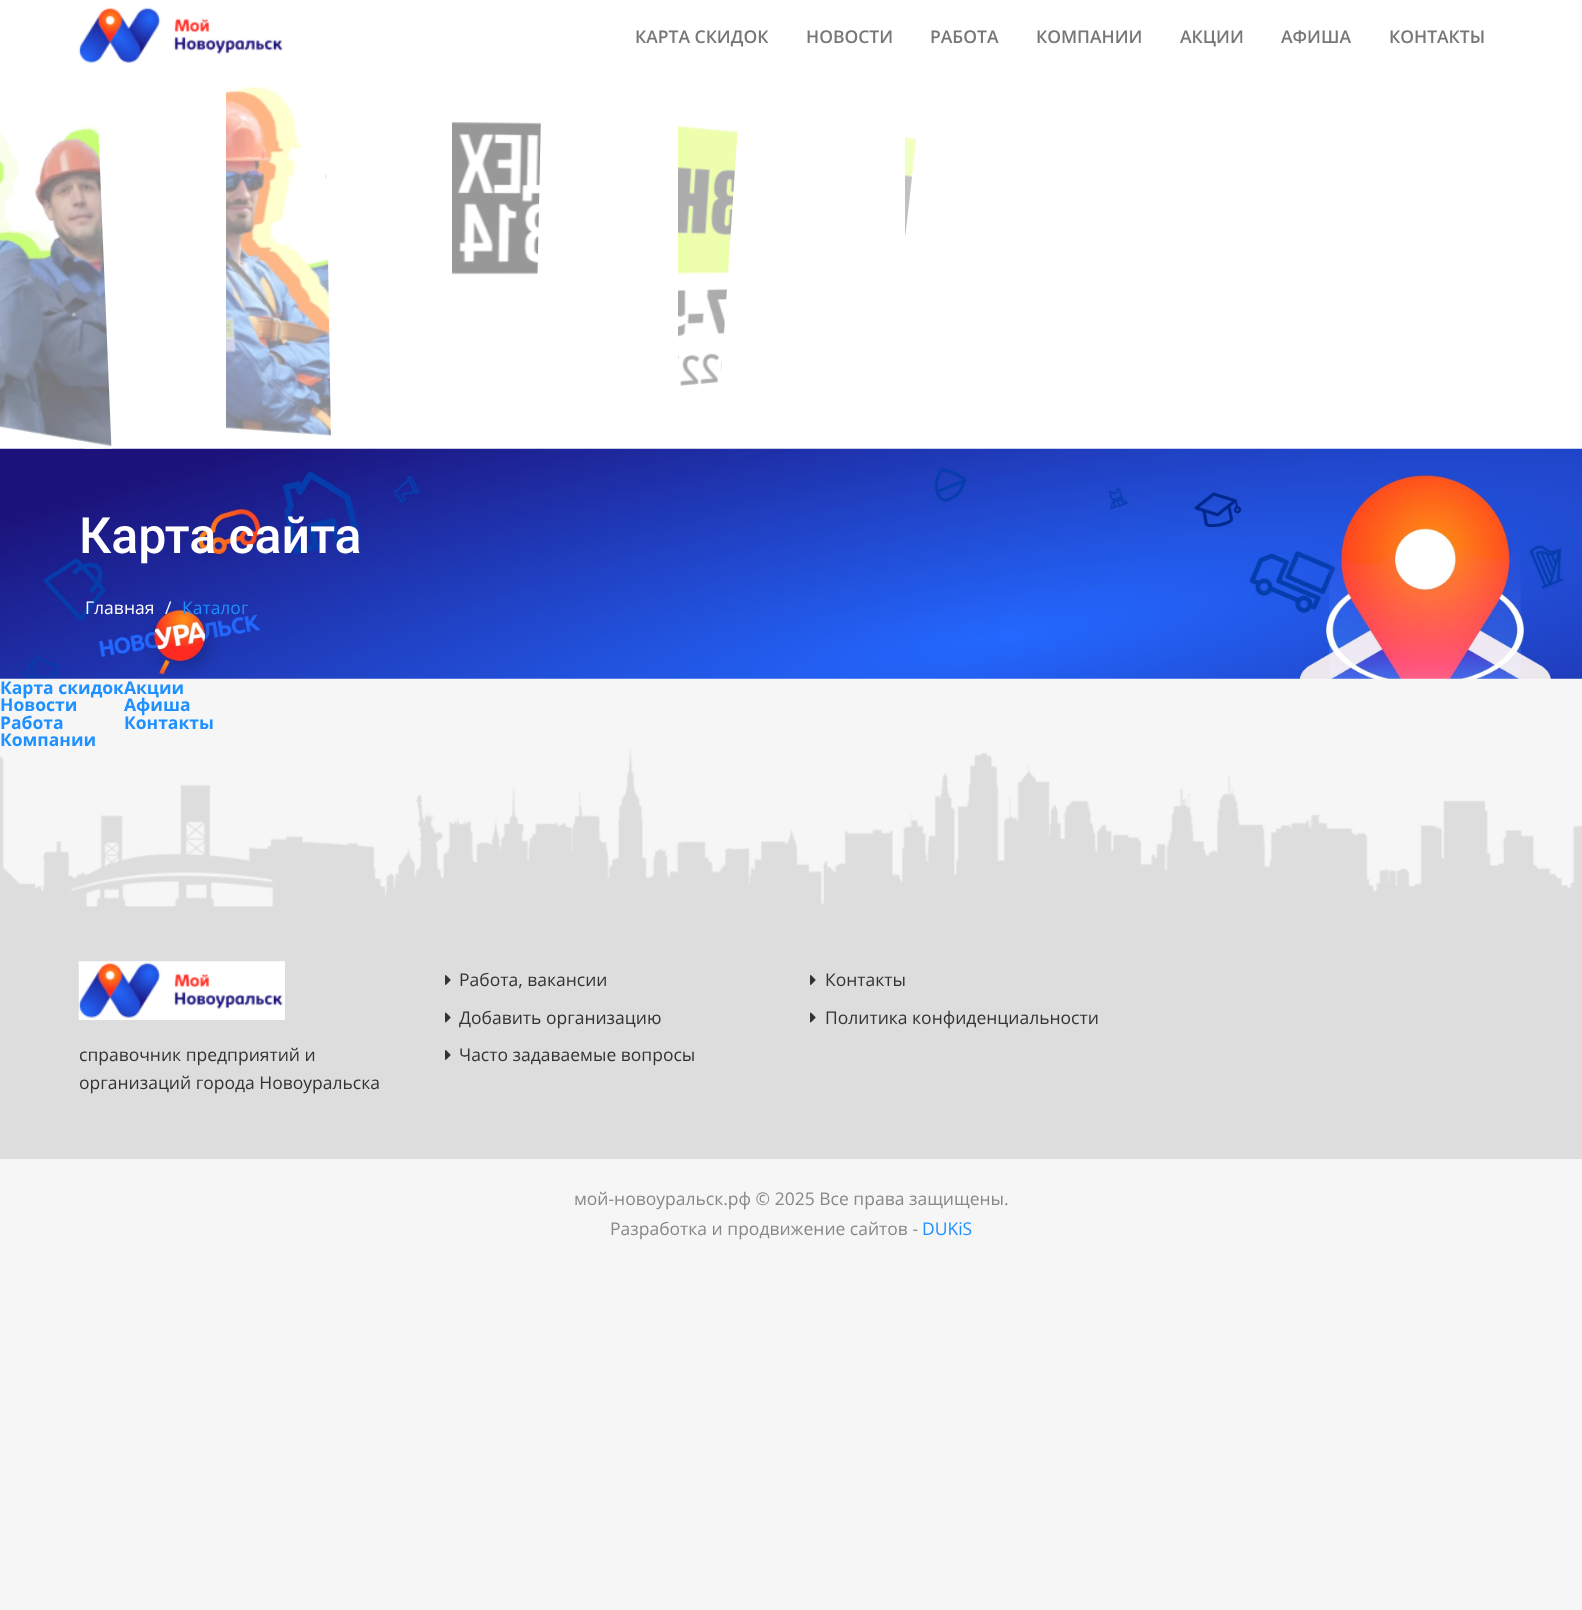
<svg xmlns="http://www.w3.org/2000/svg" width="1582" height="1610">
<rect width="100%" height="100%" fill="#f6f6f6"/>
<rect width="1582" height="449" fill="#fff"/>
<image x="78" y="7" width="205" height="56" href="media/1.png"/>
<text x="635" y="43" style="font-family:Open Sans;font-size:17.5px;font-weight:600;fill:#777">КАРТА СКИДОК</text>
<text x="806" y="43" style="font-family:Open Sans;font-size:17.5px;font-weight:600;fill:#777">НОВОСТИ</text>
<text x="930" y="43" style="font-family:Open Sans;font-size:17.5px;font-weight:600;fill:#777">РАБОТА</text>
<text x="1036" y="43" style="font-family:Open Sans;font-size:17.5px;font-weight:600;fill:#777">КОМПАНИИ</text>
<text x="1180" y="43" style="font-family:Open Sans;font-size:17.5px;font-weight:600;fill:#777">АКЦИИ</text>
<text x="1281" y="43" style="font-family:Open Sans;font-size:17.5px;font-weight:600;fill:#777">АФИША</text>
<text x="1389" y="43" style="font-family:Open Sans;font-size:17.5px;font-weight:600;fill:#777">КОНТАКТЫ</text>
<image x="0" y="448" width="1582" height="231" href="media/7.png"/>
<image x="0" y="125" width="112" height="324" href="media/2.png"/>
<image x="226" y="86" width="105" height="350" href="media/3.png"/>
<image x="452" y="121" width="89" height="154" href="media/4.png"/>
<image x="678" y="125" width="60" height="261" href="media/5.png"/>
<image x="905" y="136" width="11" height="102" href="media/6.png"/>
<text x="79" y="553" style="font-family:Roboto;font-size:50px;font-weight:500;fill:#fff">Карта сайта</text>
<text x="85" y="614" style="font-family:Open Sans;font-size:17.5px;fill:#fff">Главная</text>
<text x="165" y="614" style="font-family:Open Sans;font-size:17.5px;fill:#fff">/</text>
<text x="182" y="614" style="font-family:Open Sans;font-size:17.5px;fill:#1e90ff">Каталог</text>
<text x="0" y="694" style="font-family:Open Sans;font-size:17.5px;font-weight:bold;fill:#1e90ff">Карта скидокАкции</text>
<text x="0" y="711" style="font-family:Open Sans;font-size:17.5px;font-weight:bold;fill:#1e90ff">Новости</text>
<text x="0" y="729" style="font-family:Open Sans;font-size:17.5px;font-weight:bold;fill:#1e90ff">Работа</text>
<text x="0" y="746" style="font-family:Open Sans;font-size:17.5px;font-weight:bold;fill:#1e90ff">Компании</text>
<text x="124" y="711" style="font-family:Open Sans;font-size:17.5px;font-weight:bold;fill:#1e90ff">Афиша</text>
<text x="124" y="729" style="font-family:Open Sans;font-size:17.5px;font-weight:bold;fill:#1e90ff">Контакты</text>
<rect y="906" width="1582" height="253" fill="#ddd"/>
<image x="0" y="749" width="1582" height="158" href="media/8.png"/>
<image x="445" y="975" width="6" height="10" href="media/9.png"/>
<text x="459" y="986" style="font-family:Open Sans;font-size:17.5px;fill:#333">Работа, вакансии</text>
<image x="445" y="1012" width="6" height="11" href="media/10.png"/>
<text x="459" y="1024" style="font-family:Open Sans;font-size:17.5px;fill:#333">Добавить организацию</text>
<image x="445" y="1050" width="6" height="10" href="media/9.png"/>
<text x="459" y="1061" style="font-family:Open Sans;font-size:17.5px;fill:#333">Часто задаваемые вопросы</text>
<image x="810" y="975" width="6" height="10" href="media/9.png"/>
<text x="825" y="986" style="font-family:Open Sans;font-size:17.5px;fill:#333">Контакты</text>
<image x="810" y="1012" width="6" height="11" href="media/10.png"/>
<text x="825" y="1024" style="font-family:Open Sans;font-size:17.5px;fill:#333">Политика конфиденциальности</text>
<image x="78" y="961" width="207" height="59" href="media/11.png"/>
<text x="79" y="1061" style="font-family:Open Sans;font-size:17.5px;fill:#333">справочник предприятий и</text>
<text x="79" y="1089" style="font-family:Open Sans;font-size:17.5px;fill:#333">организаций города Новоуральска</text>
<text x="574" y="1205" style="font-family:Open Sans;font-size:17.5px;fill:#888">мой-новоуральск.рф © 2025 Все права защищены.</text>
<text x="610" y="1235" style="font-family:Open Sans;font-size:17.5px;fill:#888">Разработка и продвижение сайтов -</text>
<text x="922" y="1235" style="font-family:Open Sans;font-size:17.5px;fill:#1e90ff">DUKiS</text>
</svg>
